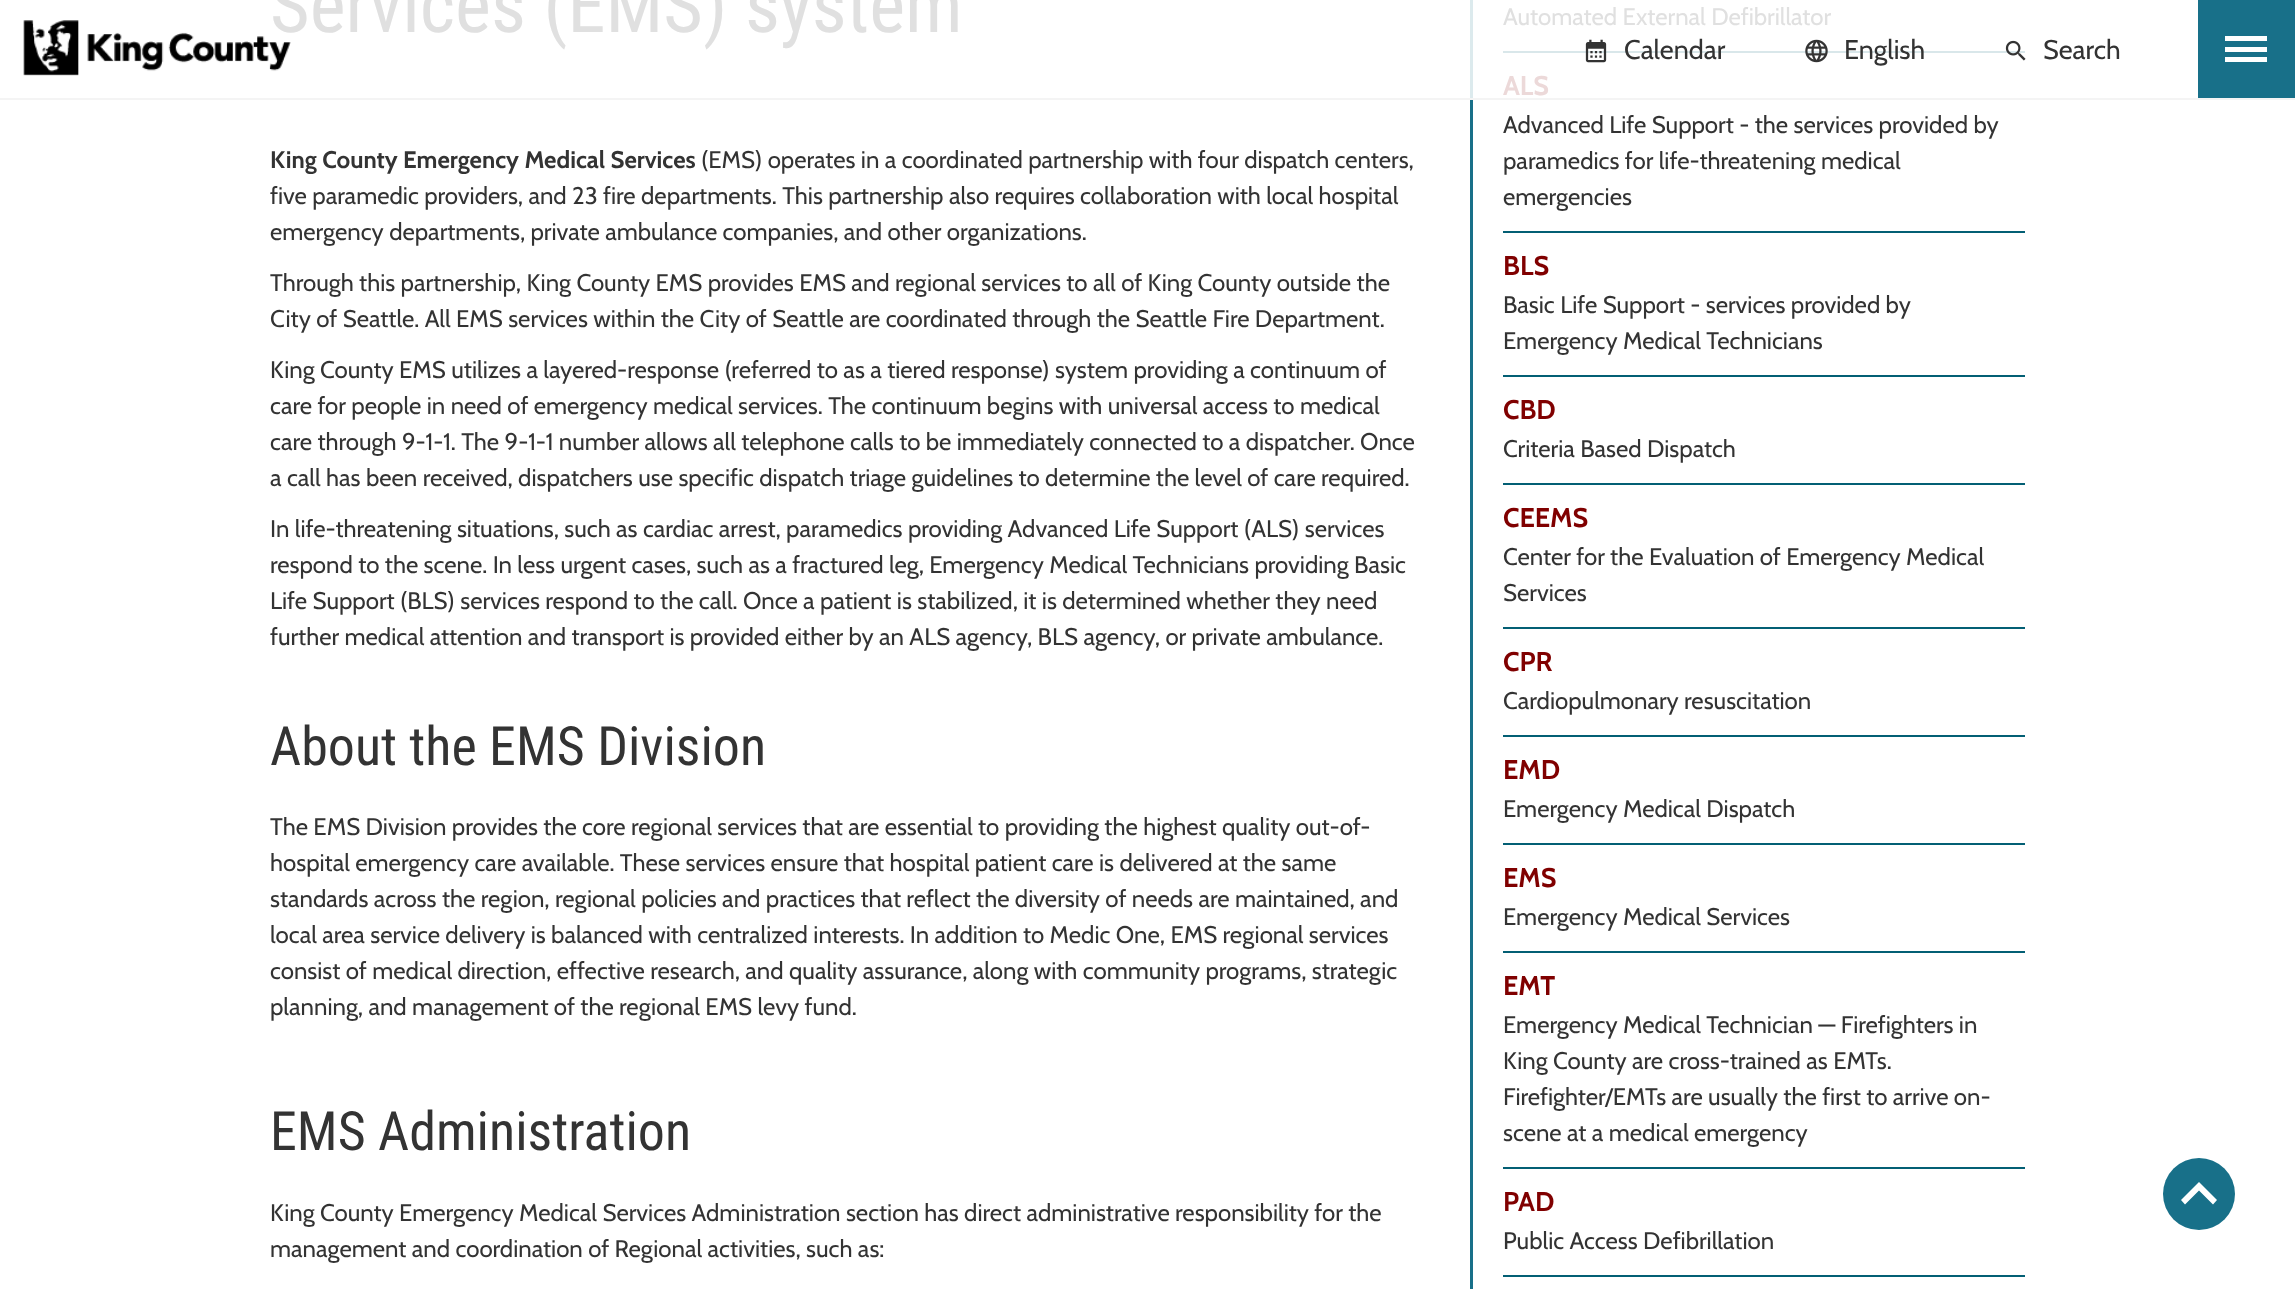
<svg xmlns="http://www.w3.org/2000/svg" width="2295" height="1289">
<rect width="100%" height="100%" fill="#fff"/>
<text x="270" y="32" style="font-family:Roboto Condensed;font-size:76.5px;fill:#e0e0e0">Services (EMS) system</text>
<text x="270" y="168" style="font-family:Cabin;font-size:24px;font-weight:bold;fill:#333">King County Emergency Medical Services</text>
<text x="701" y="168" style="font-family:Cabin;font-size:24px;fill:#333">(EMS) operates in a coordinated partnership with four dispatch centers,</text>
<text x="270" y="204" style="font-family:Cabin;font-size:24px;fill:#333">five paramedic providers, and 23 fire departments. This partnership also requires collaboration with local hospital</text>
<text x="270" y="240" style="font-family:Cabin;font-size:24px;fill:#333">emergency departments, private ambulance companies, and other organizations.</text>
<text x="270" y="291" style="font-family:Cabin;font-size:24px;fill:#333">Through this partnership, King County EMS provides EMS and regional services to all of King County outside the</text>
<text x="270" y="327" style="font-family:Cabin;font-size:24px;fill:#333">City of Seattle. All EMS services within the City of Seattle are coordinated through the Seattle Fire Department.</text>
<text x="270" y="378" style="font-family:Cabin;font-size:24px;fill:#333">King County EMS utilizes a layered-response (referred to as a tiered response) system providing a continuum of</text>
<text x="270" y="414" style="font-family:Cabin;font-size:24px;fill:#333">care for people in need of emergency medical services. The continuum begins with universal access to medical</text>
<text x="270" y="450" style="font-family:Cabin;font-size:24px;fill:#333">care through 9-1-1. The 9-1-1 number allows all telephone calls to be immediately connected to a dispatcher. Once</text>
<text x="270" y="486" style="font-family:Cabin;font-size:24px;fill:#333">a call has been received, dispatchers use specific dispatch triage guidelines to determine the level of care required.</text>
<text x="270" y="537" style="font-family:Cabin;font-size:24px;fill:#333">In life-threatening situations, such as cardiac arrest, paramedics providing Advanced Life Support (ALS) services</text>
<text x="270" y="573" style="font-family:Cabin;font-size:24px;fill:#333">respond to the scene. In less urgent cases, such as a fractured leg, Emergency Medical Technicians providing Basic</text>
<text x="270" y="609" style="font-family:Cabin;font-size:24px;fill:#333">Life Support (BLS) services respond to the call. Once a patient is stabilized, it is determined whether they need</text>
<text x="270" y="645" style="font-family:Cabin;font-size:24px;fill:#333">further medical attention and transport is provided either by an ALS agency, BLS agency, or private ambulance.</text>
<text x="270" y="765" style="font-family:Roboto Condensed;font-size:54px;fill:#333">About the EMS Division</text>
<text x="270" y="835" style="font-family:Cabin;font-size:24px;fill:#333">The EMS Division provides the core regional services that are essential to providing the highest quality out-of-</text>
<text x="270" y="871" style="font-family:Cabin;font-size:24px;fill:#333">hospital emergency care available. These services ensure that hospital patient care is delivered at the same</text>
<text x="270" y="907" style="font-family:Cabin;font-size:24px;fill:#333">standards across the region, regional policies and practices that reflect the diversity of needs are maintained, and</text>
<text x="270" y="943" style="font-family:Cabin;font-size:24px;fill:#333">local area service delivery is balanced with centralized interests. In addition to Medic One, EMS regional services</text>
<text x="270" y="979" style="font-family:Cabin;font-size:24px;fill:#333">consist of medical direction, effective research, and quality assurance, along with community programs, strategic</text>
<text x="270" y="1015" style="font-family:Cabin;font-size:24px;fill:#333">planning, and management of the regional EMS levy fund.</text>
<text x="270" y="1150" style="font-family:Roboto Condensed;font-size:54px;fill:#333">EMS Administration</text>
<text x="270" y="1221" style="font-family:Cabin;font-size:24px;fill:#333">King County Emergency Medical Services Administration section has direct administrative responsibility for the</text>
<text x="270" y="1257" style="font-family:Cabin;font-size:24px;fill:#333">management and coordination of Regional activities, such as:</text>
<rect x="1470" y="100" width="3" height="1189" fill="#187089"/>
<rect x="1470" width="3" height="99" fill="#dceaed"/>
<text x="1503" y="25" style="font-family:Cabin;font-size:24px;fill:#e0e0e0">Automated External Defibrillator</text>
<rect x="1503" y="51" width="522" height="2" fill="#d9e7ea"/>
<text x="1503" y="95" style="font-family:Cabin;font-size:27px;font-weight:bold;fill:#ecd9d9">ALS</text>
<text x="1503" y="133" style="font-family:Cabin;font-size:24px;fill:#333">Advanced Life Support - the services provided by</text>
<text x="1503" y="169" style="font-family:Cabin;font-size:24px;fill:#333">paramedics for life-threatening medical</text>
<text x="1503" y="205" style="font-family:Cabin;font-size:24px;fill:#333">emergencies</text>
<rect x="1503" y="231" width="522" height="2" fill="#035f74"/>
<text x="1503" y="275" style="font-family:Cabin;font-size:27px;font-weight:bold;fill:#800000">BLS</text>
<text x="1503" y="313" style="font-family:Cabin;font-size:24px;fill:#333">Basic Life Support - services provided by</text>
<text x="1503" y="349" style="font-family:Cabin;font-size:24px;fill:#333">Emergency Medical Technicians</text>
<rect x="1503" y="375" width="522" height="2" fill="#035f74"/>
<text x="1503" y="419" style="font-family:Cabin;font-size:27px;font-weight:bold;fill:#800000">CBD</text>
<text x="1503" y="457" style="font-family:Cabin;font-size:24px;fill:#333">Criteria Based Dispatch</text>
<rect x="1503" y="483" width="522" height="2" fill="#035f74"/>
<text x="1503" y="527" style="font-family:Cabin;font-size:27px;font-weight:bold;fill:#800000">CEEMS</text>
<text x="1503" y="565" style="font-family:Cabin;font-size:24px;fill:#333">Center for the Evaluation of Emergency Medical</text>
<text x="1503" y="601" style="font-family:Cabin;font-size:24px;fill:#333">Services</text>
<rect x="1503" y="627" width="522" height="2" fill="#035f74"/>
<text x="1503" y="671" style="font-family:Cabin;font-size:27px;font-weight:bold;fill:#800000">CPR</text>
<text x="1503" y="709" style="font-family:Cabin;font-size:24px;fill:#333">Cardiopulmonary resuscitation</text>
<rect x="1503" y="735" width="522" height="2" fill="#035f74"/>
<text x="1503" y="779" style="font-family:Cabin;font-size:27px;font-weight:bold;fill:#800000">EMD</text>
<text x="1503" y="817" style="font-family:Cabin;font-size:24px;fill:#333">Emergency Medical Dispatch</text>
<rect x="1503" y="843" width="522" height="2" fill="#035f74"/>
<text x="1503" y="887" style="font-family:Cabin;font-size:27px;font-weight:bold;fill:#800000">EMS</text>
<text x="1503" y="925" style="font-family:Cabin;font-size:24px;fill:#333">Emergency Medical Services</text>
<rect x="1503" y="951" width="522" height="2" fill="#035f74"/>
<text x="1503" y="995" style="font-family:Cabin;font-size:27px;font-weight:bold;fill:#800000">EMT</text>
<text x="1503" y="1033" style="font-family:Cabin;font-size:24px;fill:#333">Emergency Medical Technician — Firefighters in</text>
<text x="1503" y="1069" style="font-family:Cabin;font-size:24px;fill:#333">King County are cross-trained as EMTs.</text>
<text x="1503" y="1105" style="font-family:Cabin;font-size:24px;fill:#333">Firefighter/EMTs are usually the first to arrive on-</text>
<text x="1503" y="1141" style="font-family:Cabin;font-size:24px;fill:#333">scene at a medical emergency</text>
<rect x="1503" y="1167" width="522" height="2" fill="#035f74"/>
<text x="1503" y="1211" style="font-family:Cabin;font-size:27px;font-weight:bold;fill:#800000">PAD</text>
<text x="1503" y="1249" style="font-family:Cabin;font-size:24px;fill:#333">Public Access Defibrillation</text>
<rect x="1503" y="1275" width="522" height="2" fill="#035f74"/>
<rect y="98" width="2295" height="2" fill="#f4f4f4"/>
<image x="23" y="20" width="268" height="56" href="media/1.png"/>
<image x="1585" y="39" width="22" height="24" href="media/2.png"/>
<text x="1624" y="59" style="font-family:Cabin;font-size:27px;fill:#333">Calendar</text>
<image x="1805" y="39" width="23" height="24" href="media/3.png"/>
<text x="1844" y="59" style="font-family:Cabin;font-size:27px;fill:#333">English</text>
<image x="2005" y="40" width="21" height="21" href="media/4.png"/>
<text x="2043" y="59" style="font-family:Cabin;font-size:27px;fill:#333">Search</text>
<rect x="2198" width="97" height="98" fill="#187089"/>
<rect x="2225" y="36" width="42" height="5" fill="#fff"/>
<rect x="2225" y="47" width="42" height="5" fill="#fff"/>
<rect x="2225" y="57" width="42" height="5" fill="#fff"/>
<circle cx="2199" cy="1194" r="36" fill="#187089"/>
<path d="M2199 1182l18 18l-4 4.5l-14-14l-14 14l-4-4.5z" fill="#fff"/>
</svg>
